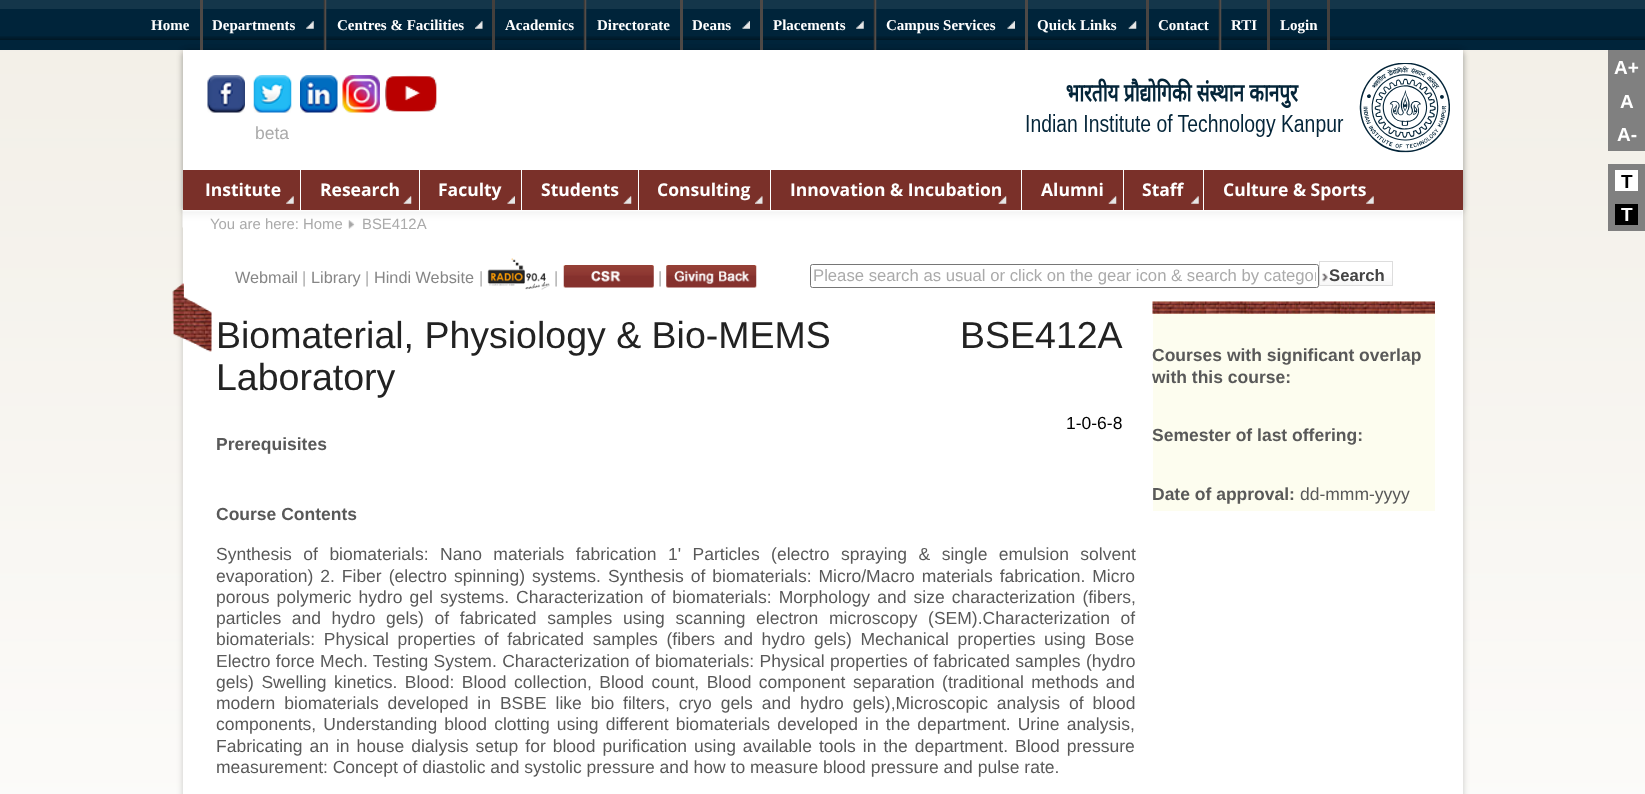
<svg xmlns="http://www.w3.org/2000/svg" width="1645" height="794">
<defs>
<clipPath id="clip1"><rect x="813" y="266" width="503" height="19"/></clipPath>
</defs>
<rect width="100%" height="100%" fill="#fff"/>
<image x="0" y="50" width="1645" height="744" href="media/1.png"/>
<rect y="9" width="1645" height="41" fill="#00243a"/>
<rect width="1645" height="9" fill="#14364a"/>
<image x="0" y="36" width="1645" height="4" href="media/8.png"/>
<rect x="183" y="51" width="1280" height="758" rx="6" fill="#00000033" filter="blur(3px)"/>
<rect x="183" y="51" width="1280" height="160" fill="#00000033" filter="blur(3px)"/>
<rect x="200" width="3" height="50" fill="#4e4946"/>
<text x="151" y="30" style="font-family:Liberation Serif;font-size:15px;font-weight:bold;fill:#fff">Home</text>
<image x="323" y="0" width="4" height="50" href="media/2.png"/>
<image x="306" y="21" width="8" height="8" href="media/3.png"/>
<text x="212" y="30" style="font-family:Liberation Serif;font-size:15px;font-weight:bold;fill:#fff">Departments</text>
<rect x="492" width="3" height="50" fill="#44403d"/>
<image x="475" y="21" width="8" height="8" href="media/4.png"/>
<text x="337" y="30" style="font-family:Liberation Serif;font-size:15px;font-weight:bold;fill:#fff">Centres &amp; Facilities</text>
<image x="583" y="0" width="4" height="50" href="media/2.png"/>
<text x="505" y="30" style="font-family:Liberation Serif;font-size:15px;font-weight:bold;fill:#fff">Academics</text>
<rect x="680" width="3" height="50" fill="#4e4946"/>
<text x="597" y="30" style="font-family:Liberation Serif;font-size:15px;font-weight:bold;fill:#fff">Directorate</text>
<rect x="760" width="3" height="50" fill="#4e4946"/>
<image x="742" y="21" width="8" height="8" href="media/5.png"/>
<text x="692" y="30" style="font-family:Liberation Serif;font-size:15px;font-weight:bold;fill:#fff">Deans</text>
<image x="873" y="0" width="4" height="50" href="media/2.png"/>
<image x="856" y="21" width="8" height="8" href="media/3.png"/>
<text x="773" y="30" style="font-family:Liberation Serif;font-size:15px;font-weight:bold;fill:#fff">Placements</text>
<rect x="1025" width="3" height="50" fill="#4e4946"/>
<image x="1007" y="21" width="8" height="8" href="media/6.png"/>
<text x="886" y="30" style="font-family:Liberation Serif;font-size:15px;font-weight:bold;fill:#fff">Campus Services</text>
<rect x="1146" width="3" height="50" fill="#4a4542"/>
<image x="1128" y="21" width="9" height="8" href="media/7.png"/>
<text x="1037" y="30" style="font-family:Liberation Serif;font-size:15px;font-weight:bold;fill:#fff">Quick Links</text>
<image x="1218" y="0" width="4" height="50" href="media/2.png"/>
<text x="1158" y="30" style="font-family:Liberation Serif;font-size:15px;font-weight:bold;fill:#fff">Contact</text>
<rect x="1267" width="3" height="50" fill="#44403d"/>
<text x="1231" y="30" style="font-family:Liberation Serif;font-size:15px;font-weight:bold;fill:#fff">RTI</text>
<rect x="1327" width="3" height="50" fill="#44403d"/>
<text x="1280" y="30" style="font-family:Liberation Serif;font-size:15px;font-weight:bold;fill:#fff">Login</text>
<rect x="183" y="50" width="1280" height="120" fill="#fff"/>
<image x="207" y="75" width="38" height="38" href="media/9.png"/>
<image x="253" y="75" width="39" height="38" href="media/10.png"/>
<image x="300" y="75" width="38" height="38" href="media/11.png"/>
<image x="342" y="75" width="38" height="38" href="media/12.png"/>
<image x="385" y="75" width="52" height="37" href="media/13.png"/>
<text x="255" y="139" style="font-family:Liberation Sans;font-size:17.5px;fill:#aaa">beta</text>
<image x="1026" y="63" width="424" height="90" href="media/14.png"/>
<rect x="183" y="210" width="1280" height="584" fill="#fff"/>
<image x="182" y="208" width="1281" height="20" href="media/20.png"/>
<rect x="183" y="170" width="1280" height="40" fill="#7a3029"/>
<image x="286" y="196" width="8" height="8" href="media/15.png"/>
<rect x="300" y="170" width="1" height="40" fill="#fff"/>
<text x="205" y="196" style="font-family:Open Sans;font-size:17.5px;font-weight:bold;fill:#fff">Institute</text>
<image x="403" y="196" width="9" height="8" href="media/16.png"/>
<rect x="419" y="170" width="1" height="40" fill="#fff"/>
<text x="320" y="196" style="font-family:Open Sans;font-size:17.5px;font-weight:bold;fill:#fff">Research</text>
<image x="507" y="196" width="8" height="8" href="media/17.png"/>
<rect x="521" y="170" width="1" height="40" fill="#fff"/>
<text x="438" y="196" style="font-family:Open Sans;font-size:17.5px;font-weight:bold;fill:#fff">Faculty</text>
<image x="623" y="196" width="9" height="8" href="media/18.png"/>
<rect x="638" y="170" width="1" height="40" fill="#fff"/>
<text x="541" y="196" style="font-family:Open Sans;font-size:17.5px;font-weight:bold;fill:#fff">Students</text>
<image x="755" y="196" width="8" height="8" href="media/19.png"/>
<rect x="770" y="170" width="1" height="40" fill="#fff"/>
<text x="657" y="196" style="font-family:Open Sans;font-size:17.5px;font-weight:bold;fill:#fff">Consulting</text>
<image x="998" y="196" width="9" height="8" href="media/16.png"/>
<rect x="1021" y="170" width="1" height="40" fill="#fff"/>
<text x="790" y="196" style="font-family:Open Sans;font-size:17.5px;font-weight:bold;fill:#fff">Innovation &amp; Incubation</text>
<image x="1108" y="196" width="9" height="8" href="media/16.png"/>
<rect x="1123" y="170" width="1" height="40" fill="#fff"/>
<text x="1041" y="196" style="font-family:Open Sans;font-size:17.5px;font-weight:bold;fill:#fff">Alumni</text>
<image x="1191" y="196" width="8" height="8" href="media/15.png"/>
<rect x="1203" y="170" width="1" height="40" fill="#fff"/>
<text x="1142" y="196" style="font-family:Open Sans;font-size:17.5px;font-weight:bold;fill:#fff">Staff</text>
<image x="1366" y="196" width="8" height="8" href="media/15.png"/>
<text x="1223" y="196" style="font-family:Open Sans;font-size:17.5px;font-weight:bold;fill:#fff">Culture &amp; Sports</text>
<text x="210" y="229" style="font-family:Liberation Sans;font-size:14.9px;fill:#aaa">You are here: Home</text>
<image x="348" y="220" width="7" height="9" href="media/21.png"/>
<text x="362" y="229" style="font-family:Liberation Sans;font-size:14.9px;fill:#aaa">BSE412A</text>
<rect x="810.5" y="264.5" width="508" height="23" rx="2" fill="none" stroke="#767676"/>
<g clip-path="url(#clip1)">
<text x="813" y="281" style="font-family:Liberation Sans;font-size:16.7px;fill:#aaa">Please search as usual or click on the gear icon &amp; search by categor</text>
</g>
<image x="1320" y="273" width="72" height="12" href="media/22.png"/>
<rect x="1319.5" y="261.5" width="73" height="24" fill="none" stroke="#ddd"/>
<text x="1329" y="281" style="font-family:Liberation Sans;font-size:16.7px;font-weight:bold;fill:#444">Search</text>
<text x="235" y="283" style="font-family:Liberation Sans;font-size:16.25px;fill:#868686">Webmail</text>
<text x="302" y="283" style="font-family:Liberation Sans;font-size:16.25px;fill:#aaa">|</text>
<text x="311" y="283" style="font-family:Liberation Sans;font-size:16.25px;fill:#868686">Library</text>
<text x="365" y="283" style="font-family:Liberation Sans;font-size:16.25px;fill:#aaa">|</text>
<text x="374" y="283" style="font-family:Liberation Sans;font-size:16.25px;fill:#868686">Hindi Website</text>
<text x="479" y="283" style="font-family:Liberation Sans;font-size:16.25px;fill:#aaa">|</text>
<image x="487" y="258" width="63" height="32" href="media/23.png"/>
<text x="554" y="283" style="font-family:Liberation Sans;font-size:16.25px;fill:#aaa">|</text>
<image x="563" y="265" width="91" height="23" href="media/24.png"/>
<text x="658" y="283" style="font-family:Liberation Sans;font-size:16.25px;fill:#aaa">|</text>
<image x="666" y="265" width="91" height="23" href="media/25.png"/>
<image x="172" y="283" width="40" height="69" href="media/26.png"/>
<text x="216" y="348" style="font-family:Liberation Sans;font-size:37.5px;fill:#222">Biomaterial, Physiology &amp; Bio-MEMS</text>
<text x="216" y="390" style="font-family:Liberation Sans;font-size:37.5px;fill:#222">Laboratory</text>
<image x="172" y="283" width="40" height="69" href="media/27.png"/>
<text x="960" y="348" style="font-family:Liberation Sans;font-size:37.5px;fill:#222">BSE412A</text>
<text x="1066" y="429" style="font-family:Liberation Sans;font-size:17.5px;fill:#000">1-0-6-8</text>
<rect x="1153" y="301" width="282" height="210" fill="#fdfdef"/>
<image x="1152" y="301" width="283" height="13" href="media/28.png"/>
<text x="1152" y="361" style="font-family:Liberation Sans;font-size:17.5px;font-weight:bold;fill:#595959">Courses with significant overlap</text>
<text x="1152" y="383" style="font-family:Liberation Sans;font-size:17.5px;font-weight:bold;fill:#595959">with this course:</text>
<text x="1152" y="441" style="font-family:Liberation Sans;font-size:17.5px;font-weight:bold;fill:#595959">Semester of last offering:</text>
<text x="1152" y="500" style="font-family:Liberation Sans;font-size:17.5px;font-weight:bold;fill:#595959">Date of approval:</text>
<text x="1300" y="500" style="font-family:Liberation Sans;font-size:17.5px;fill:#595959">dd-mmm-yyyy</text>
<text x="216" y="450" style="font-family:Liberation Sans;font-size:17.5px;font-weight:bold;fill:#595959">Prerequisites</text>
<text x="216" y="520" style="font-family:Liberation Sans;font-size:17.5px;font-weight:bold;fill:#595959">Course Contents</text>
<text x="216" y="560" word-spacing="6.6" style="font-family:Liberation Sans;font-size:17.5px;fill:#595959">Synthesis of biomaterials: Nano materials fabrication 1' Particles (electro spraying &amp; single emulsion solvent</text>
<text x="216" y="582" word-spacing="2.1" style="font-family:Liberation Sans;font-size:17.5px;fill:#595959">evaporation) 2. Fiber (electro spinning) systems. Synthesis of biomaterials: Micro/Macro materials fabrication. Micro</text>
<text x="216" y="603" word-spacing="2.25" style="font-family:Liberation Sans;font-size:17.5px;fill:#595959">porous polymeric hydro gel systems. Characterization of biomaterials: Morphology and size characterization (fibers,</text>
<text x="216" y="624" word-spacing="5.75" style="font-family:Liberation Sans;font-size:17.5px;fill:#595959">particles and hydro gels) of fabricated samples using scanning electron microscopy (SEM).Characterization of</text>
<text x="216" y="645" word-spacing="3.75" style="font-family:Liberation Sans;font-size:17.5px;fill:#595959">biomaterials: Physical properties of fabricated samples (fibers and hydro gels) Mechanical properties using Bose</text>
<text x="216" y="667" word-spacing="0.5" style="font-family:Liberation Sans;font-size:17.5px;fill:#595959">Electro force Mech. Testing System. Characterization of biomaterials: Physical properties of fabricated samples (hydro</text>
<text x="216" y="688" word-spacing="2.6" style="font-family:Liberation Sans;font-size:17.5px;fill:#595959">gels) Swelling kinetics. Blood: Blood collection, Blood count, Blood component separation (traditional methods and</text>
<text x="216" y="709" word-spacing="4.1" style="font-family:Liberation Sans;font-size:17.5px;fill:#595959">modern biomaterials developed in BSBE like bio filters, cryo gels and hydro gels),Microscopic analysis of blood</text>
<text x="216" y="730" word-spacing="2.25" style="font-family:Liberation Sans;font-size:17.5px;fill:#595959">components, Understanding blood clotting using different biomaterials developed in the department. Urine analysis,</text>
<text x="216" y="752" word-spacing="2.1" style="font-family:Liberation Sans;font-size:17.5px;fill:#595959">Fabricating an in house dialysis setup for blood purification using available tools in the department. Blood pressure</text>
<text x="216" y="773" style="font-family:Liberation Sans;font-size:17.5px;fill:#595959">measurement: Concept of diastolic and systolic pressure and how to measure blood pressure and pulse rate.</text>
<rect x="1608" y="50" width="37" height="101" fill="#808080"/>
<text x="1614" y="74" style="font-family:Liberation Sans;font-size:19px;font-weight:bold;fill:#fff">A+</text>
<text x="1620" y="108" style="font-family:Liberation Sans;font-size:19px;font-weight:bold;fill:#fff">A</text>
<text x="1617" y="141" style="font-family:Liberation Sans;font-size:19px;font-weight:bold;fill:#fff">A-</text>
<rect x="1608" y="164" width="37" height="67" fill="#808080"/>
<rect x="1615" y="170" width="23" height="21" fill="#fff"/>
<text x="1621" y="188" style="font-family:Liberation Sans;font-size:19px;font-weight:bold;fill:#000">T</text>
<rect x="1615" y="204" width="23" height="21" fill="#000"/>
<text x="1621" y="221" style="font-family:Liberation Sans;font-size:19px;font-weight:bold;fill:#fff">T</text>
</svg>
